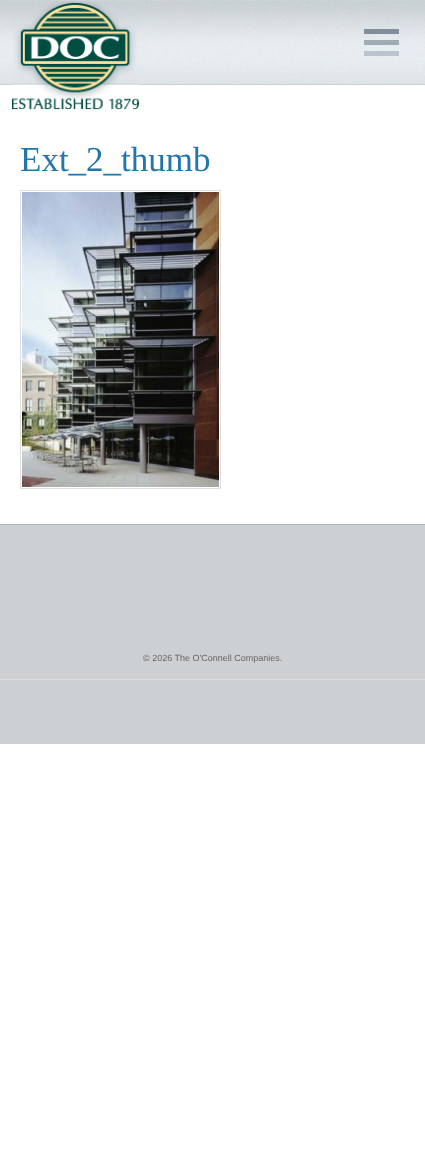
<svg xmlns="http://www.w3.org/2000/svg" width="425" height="1156">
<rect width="100%" height="100%" fill="#fff"/>
<image x="0" y="0" width="425" height="85" href="media/1.png"/>
<image x="11" y="1" width="129" height="109" href="media/2.png"/>
<rect x="364" y="29" width="35" height="5" fill="#818d9a"/>
<rect x="364" y="40" width="35" height="5" fill="#a0abb6"/>
<rect x="364" y="51" width="35" height="5" fill="#b9c4ce"/>
<text x="20" y="171" style="font-family:Liberation Serif;font-size:35px;fill:#27a">Ext_2_thumb</text>
<rect x="20.5" y="190.5" width="200" height="298" fill="none" stroke="#dfdfdf"/>
<image x="22" y="192" width="197" height="295" href="media/3.png"/>
<rect y="525" width="425" height="219" fill="#ccd0d3"/>
<rect y="524" width="425" height="1" fill="#b2b2b2"/>
<text x="143" y="661" style="font-family:Liberation Sans;font-size:9px;fill:#666">© 2026 The O'Connell Companies.</text>
<rect y="679" width="425" height="1" fill="#dcdcdc"/>
</svg>
